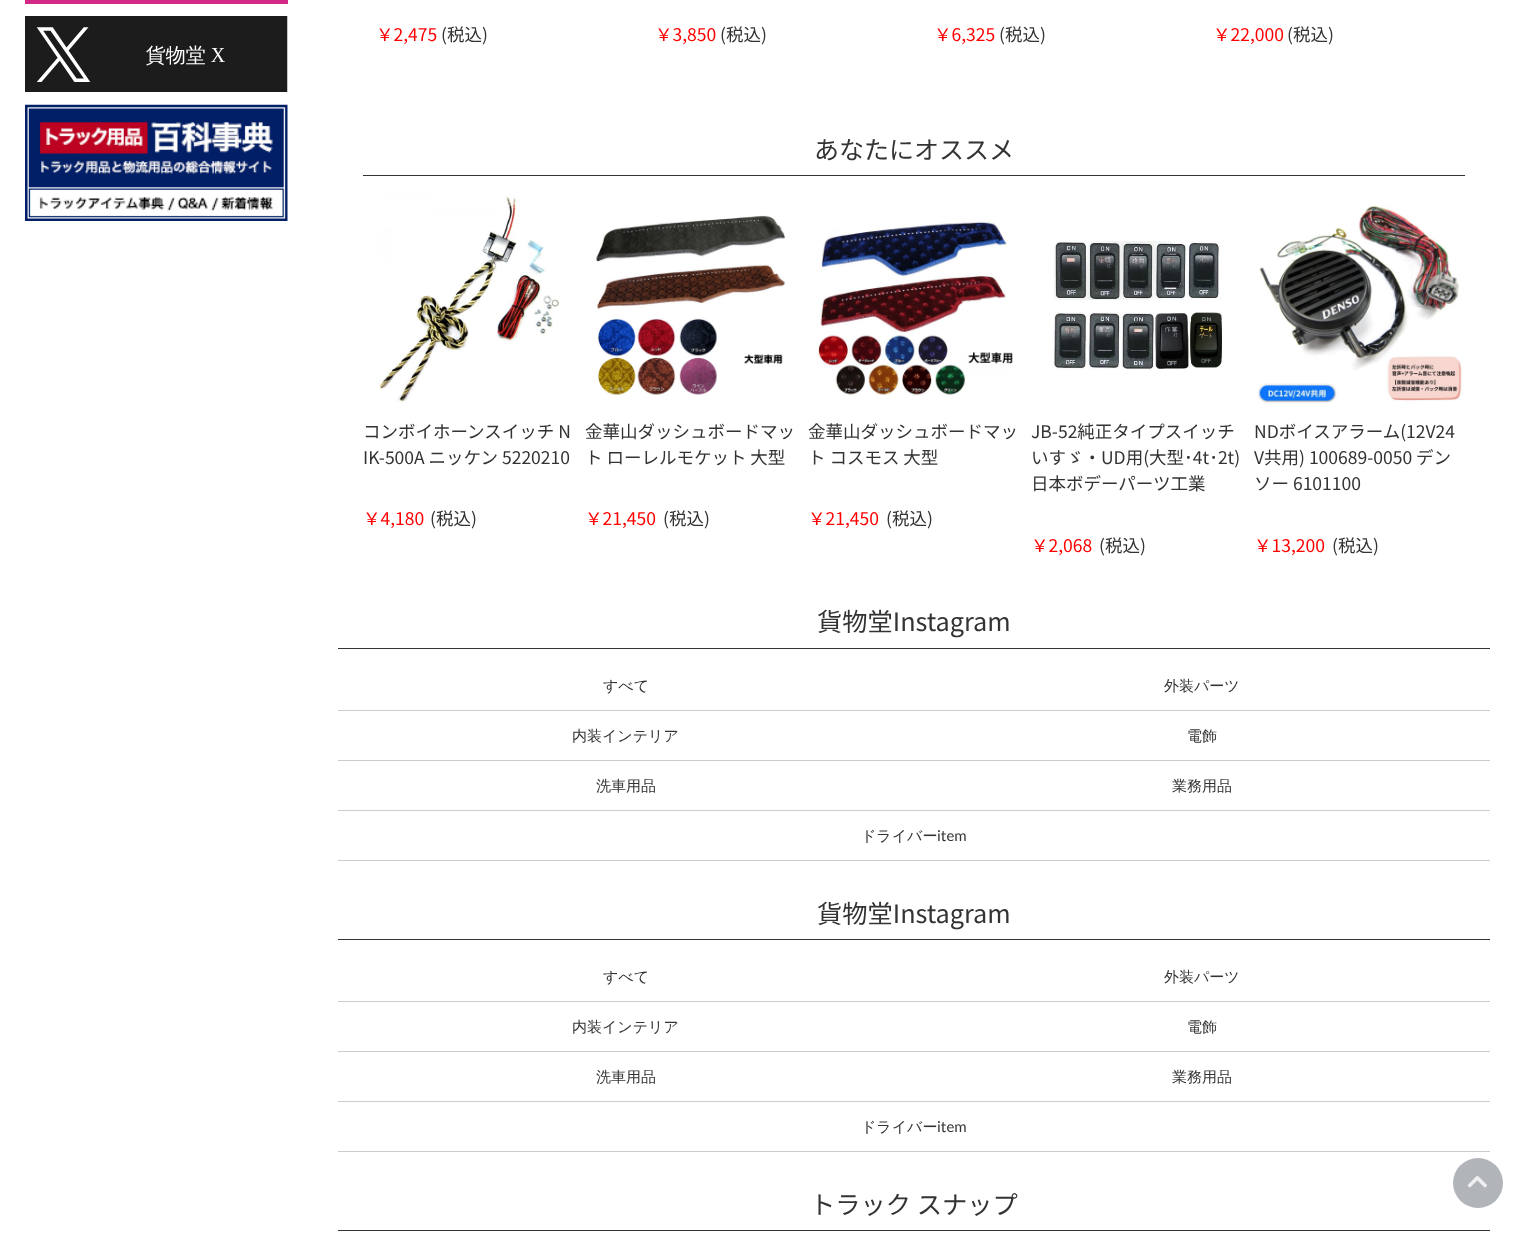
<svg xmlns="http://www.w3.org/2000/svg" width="1514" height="1244">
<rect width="100%" height="100%" fill="#fff"/>
<rect x="25" width="263" height="4" fill="#d32886"/>
<image x="25" y="16" width="263" height="76" href="media/1.png"/>
<image x="25" y="104" width="263" height="117" href="media/2.png"/>
<text x="376" y="41" style="font-family:Noto Sans JP;font-size:17.5px;fill:#f00">￥2,475</text>
<text x="441" y="41" style="font-family:Noto Sans JP;font-size:17.5px;fill:#333">(税込)</text>
<text x="655" y="41" style="font-family:Noto Sans JP;font-size:17.5px;fill:#f00">￥3,850</text>
<text x="720" y="41" style="font-family:Noto Sans JP;font-size:17.5px;fill:#333">(税込)</text>
<text x="934" y="41" style="font-family:Noto Sans JP;font-size:17.5px;fill:#f00">￥6,325</text>
<text x="999" y="41" style="font-family:Noto Sans JP;font-size:17.5px;fill:#333">(税込)</text>
<text x="1213" y="41" style="font-family:Noto Sans JP;font-size:17.5px;fill:#f00">￥22,000</text>
<text x="1287" y="41" style="font-family:Noto Sans JP;font-size:17.5px;fill:#333">(税込)</text>
<rect x="363" y="175" width="1102" height="1" fill="#333"/>
<text x="814" y="159" style="font-family:Noto Sans JP;font-size:25px;fill:#333">あなたにオススメ</text>
<image x="379" y="195" width="181" height="207" href="media/3.png"/>
<text x="363" y="438" style="font-family:Noto Sans JP;font-size:17.5px;fill:#333">コンボイホーンスイッチ N</text>
<text x="363" y="464" style="font-family:Noto Sans JP;font-size:17.5px;fill:#333">IK-500A ニッケン 5220210</text>
<text x="363" y="525" style="font-family:Noto Sans JP;font-size:17.5px;fill:#f00">￥4,180</text>
<text x="430" y="525" style="font-family:Noto Sans JP;font-size:17.5px;fill:#333">(税込)</text>
<image x="596" y="215" width="190" height="180" href="media/4.png"/>
<text x="585" y="438" style="font-family:Noto Sans JP;font-size:17.5px;fill:#333">金華山ダッシュボードマッ</text>
<text x="585" y="464" style="font-family:Noto Sans JP;font-size:17.5px;fill:#333">ト ローレルモケット 大型</text>
<text x="585" y="525" style="font-family:Noto Sans JP;font-size:17.5px;fill:#f00">￥21,450</text>
<text x="663" y="525" style="font-family:Noto Sans JP;font-size:17.5px;fill:#333">(税込)</text>
<image x="816" y="221" width="197" height="175" href="media/5.png"/>
<text x="808" y="438" style="font-family:Noto Sans JP;font-size:17.5px;fill:#333">金華山ダッシュボードマッ</text>
<text x="808" y="464" style="font-family:Noto Sans JP;font-size:17.5px;fill:#333">ト コスモス 大型</text>
<text x="808" y="525" style="font-family:Noto Sans JP;font-size:17.5px;fill:#f00">￥21,450</text>
<text x="886" y="525" style="font-family:Noto Sans JP;font-size:17.5px;fill:#333">(税込)</text>
<image x="1053" y="241" width="170" height="129" href="media/6.png"/>
<text x="1031" y="438" style="font-family:Noto Sans JP;font-size:17.5px;fill:#333">JB-52純正タイプスイッチ</text>
<text x="1031" y="464" style="font-family:Noto Sans JP;font-size:17.5px;fill:#333">いすゞ・UD用(大型･4t･2t)</text>
<text x="1031" y="490" style="font-family:Noto Sans JP;font-size:17.5px;fill:#333">日本ボデーパーツ工業</text>
<text x="1031" y="552" style="font-family:Noto Sans JP;font-size:17.5px;fill:#f00">￥2,068</text>
<text x="1099" y="552" style="font-family:Noto Sans JP;font-size:17.5px;fill:#333">(税込)</text>
<image x="1258" y="206" width="205" height="198" href="media/7.png"/>
<text x="1254" y="438" style="font-family:Noto Sans JP;font-size:17.5px;fill:#333">NDボイスアラーム(12V24</text>
<text x="1254" y="464" style="font-family:Noto Sans JP;font-size:17.5px;fill:#333">V共用) 100689-0050 デン</text>
<text x="1254" y="490" style="font-family:Noto Sans JP;font-size:17.5px;fill:#333">ソー 6101100</text>
<text x="1254" y="552" style="font-family:Noto Sans JP;font-size:17.5px;fill:#f00">￥13,200</text>
<text x="1332" y="552" style="font-family:Noto Sans JP;font-size:17.5px;fill:#333">(税込)</text>
<rect x="338" y="648" width="1152" height="1" fill="#333"/>
<text x="817" y="631" style="font-family:Noto Sans JP;font-size:25.25px;fill:#333">貨物堂Instagram</text>
<rect x="338" y="710" width="1152" height="1" fill="#ccc"/>
<text x="603" y="691" style="font-family:WenQuanYi Zen Hei;font-size:15px;font-weight:500;fill:#333">すべて</text>
<text x="1164" y="691" style="font-family:WenQuanYi Zen Hei;font-size:15px;font-weight:500;fill:#333">外装パーツ</text>
<rect x="338" y="760" width="1152" height="1" fill="#ccc"/>
<text x="572" y="741" style="font-family:WenQuanYi Zen Hei;font-size:15px;font-weight:500;fill:#333">内装インテリア</text>
<text x="1187" y="741" style="font-family:WenQuanYi Zen Hei;font-size:15px;font-weight:500;fill:#333">電飾</text>
<rect x="338" y="810" width="1152" height="1" fill="#ccc"/>
<text x="596" y="791" style="font-family:WenQuanYi Zen Hei;font-size:15px;font-weight:500;fill:#333">洗車用品</text>
<text x="1172" y="791" style="font-family:WenQuanYi Zen Hei;font-size:15px;font-weight:500;fill:#333">業務用品</text>
<rect x="338" y="860" width="1152" height="1" fill="#ccc"/>
<text x="861" y="841" style="font-family:WenQuanYi Zen Hei;font-size:15px;font-weight:500;fill:#333">ドライバー</text>
<text x="937" y="841" style="font-family:Lato;font-size:15px;fill:#333">item</text>
<rect x="338" y="939" width="1152" height="1" fill="#333"/>
<text x="817" y="923" style="font-family:Noto Sans JP;font-size:25.25px;fill:#333">貨物堂Instagram</text>
<rect x="338" y="1001" width="1152" height="1" fill="#ccc"/>
<text x="603" y="982" style="font-family:WenQuanYi Zen Hei;font-size:15px;font-weight:500;fill:#333">すべて</text>
<text x="1164" y="982" style="font-family:WenQuanYi Zen Hei;font-size:15px;font-weight:500;fill:#333">外装パーツ</text>
<rect x="338" y="1051" width="1152" height="1" fill="#ccc"/>
<text x="572" y="1032" style="font-family:WenQuanYi Zen Hei;font-size:15px;font-weight:500;fill:#333">内装インテリア</text>
<text x="1187" y="1032" style="font-family:WenQuanYi Zen Hei;font-size:15px;font-weight:500;fill:#333">電飾</text>
<rect x="338" y="1101" width="1152" height="1" fill="#ccc"/>
<text x="596" y="1082" style="font-family:WenQuanYi Zen Hei;font-size:15px;font-weight:500;fill:#333">洗車用品</text>
<text x="1172" y="1082" style="font-family:WenQuanYi Zen Hei;font-size:15px;font-weight:500;fill:#333">業務用品</text>
<rect x="338" y="1151" width="1152" height="1" fill="#ccc"/>
<text x="861" y="1132" style="font-family:WenQuanYi Zen Hei;font-size:15px;font-weight:500;fill:#333">ドライバー</text>
<text x="937" y="1132" style="font-family:Lato;font-size:15px;fill:#333">item</text>
<rect x="338" y="1230" width="1152" height="1" fill="#333"/>
<text x="810" y="1214" style="font-family:Noto Sans JP;font-size:25.25px;fill:#333">トラック スナップ</text>
<circle cx="1478" cy="1183" r="25" fill="#b1b5ba"/>
<image x="1467" y="1175" width="20" height="13" href="media/8.png"/>
</svg>
